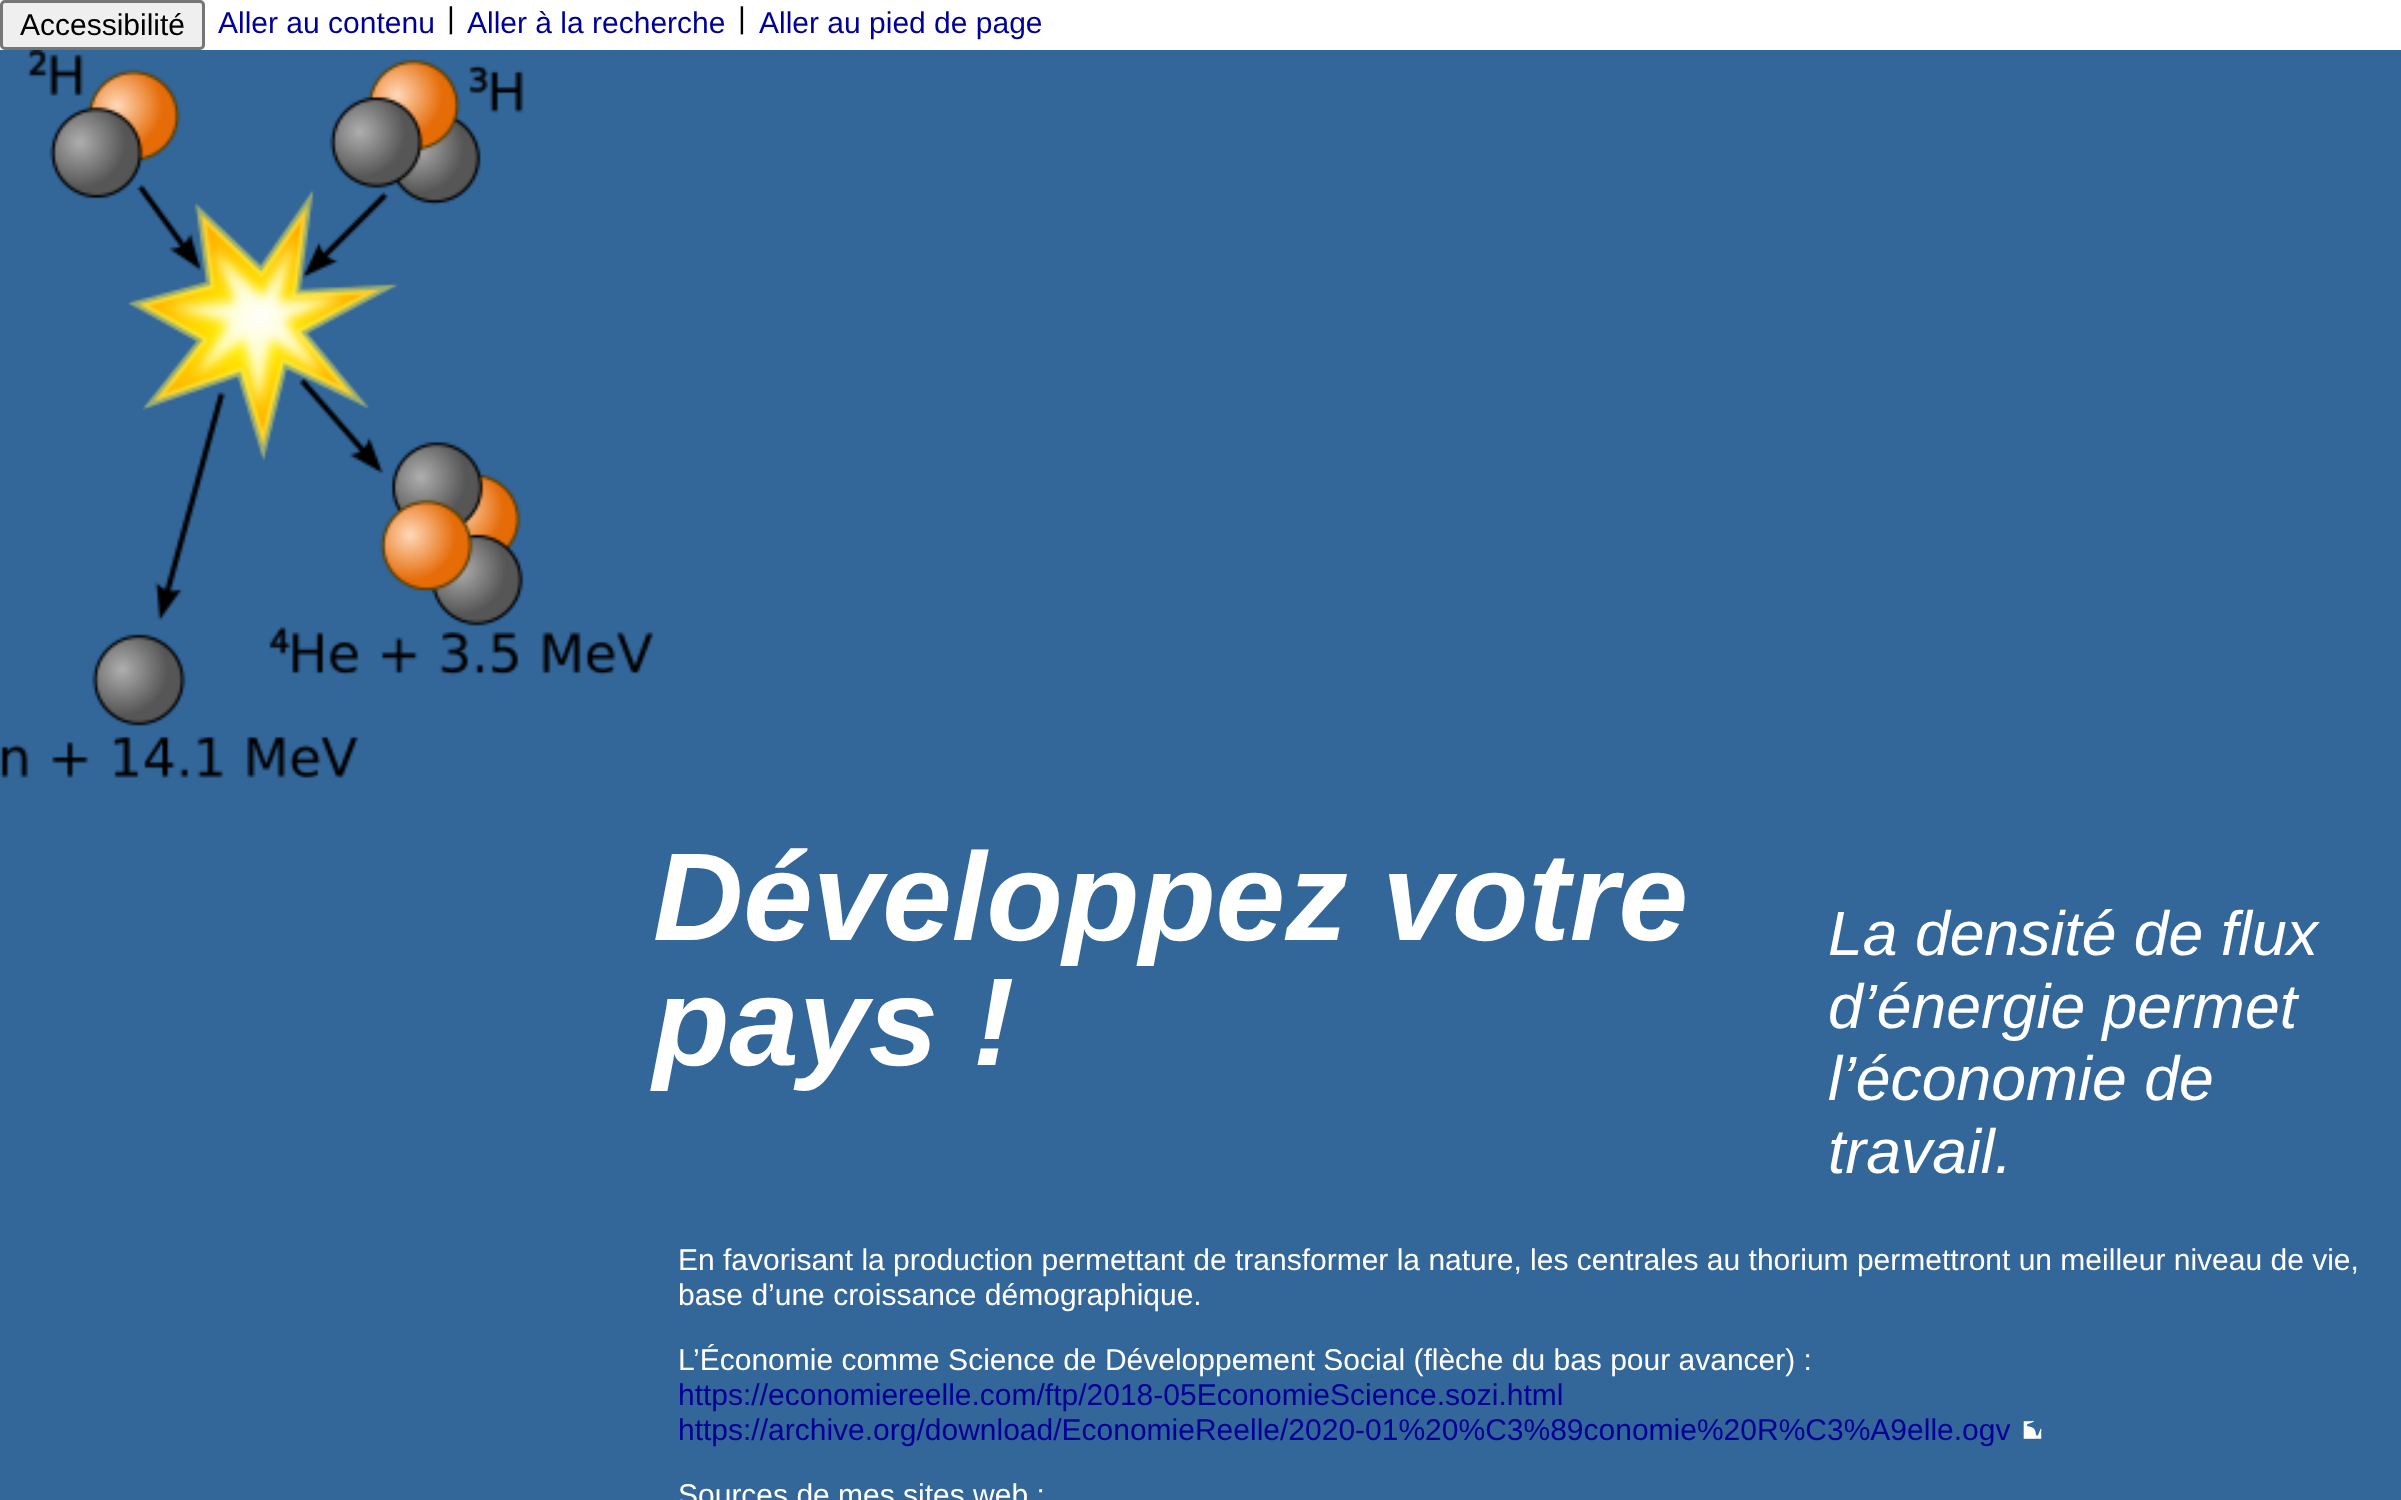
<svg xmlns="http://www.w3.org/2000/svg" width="2401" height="1500">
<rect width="100%" height="100%" fill="#369"/>
<rect width="2401" height="50" fill="#fff"/>
<rect x="1.5" y="1.5" width="202" height="47" rx="3.5" fill="#efefef" stroke="#767676" stroke-width="3"/>
<text x="20" y="35" style="font-family:Liberation Sans;font-size:30px;fill:#000">Accessibilité</text>
<text x="218" y="33" style="font-family:Liberation Sans;font-size:30px;fill:#009">Aller au contenu</text>
<text x="447" y="28" style="font-family:Liberation Sans;font-size:30px;fill:#000">|</text>
<text x="467" y="33" style="font-family:Liberation Sans;font-size:30px;fill:#009">Aller à la recherche</text>
<text x="738" y="28" style="font-family:Liberation Sans;font-size:30px;fill:#000">|</text>
<text x="759" y="33" style="font-family:Liberation Sans;font-size:30px;fill:#009">Aller au pied de page</text>
<image x="0" y="50" width="654" height="728" href="media/1.png"/>
<text x="653" y="940" style="font-family:Liberation Sans;font-size:125px;font-weight:bold;font-style:italic;fill:#fff">Développez votre</text>
<text x="653" y="1065" style="font-family:Liberation Sans;font-size:125px;font-weight:bold;font-style:italic;fill:#fff">pays !</text>
<text x="1828" y="955" style="font-family:Liberation Sans;font-size:62.5px;font-style:italic;fill:#fff">La densité de flux</text>
<text x="1828" y="1028" style="font-family:Liberation Sans;font-size:62.5px;font-style:italic;fill:#fff">d’énergie permet</text>
<text x="1828" y="1100" style="font-family:Liberation Sans;font-size:62.5px;font-style:italic;fill:#fff">l’économie de</text>
<text x="1828" y="1173" style="font-family:Liberation Sans;font-size:62.5px;font-style:italic;fill:#fff">travail.</text>
<text x="678" y="1270" style="font-family:Liberation Sans;font-size:30px;fill:#fff">En favorisant la production permettant de transformer la nature, les centrales au thorium permettront un meilleur niveau de vie,</text>
<text x="678" y="1305" style="font-family:Liberation Sans;font-size:30px;fill:#fff">base d’une croissance démographique.</text>
<text x="678" y="1370" style="font-family:Liberation Sans;font-size:30px;fill:#fff">L’Économie comme Science de Développement Social (flèche du bas pour avancer) :</text>
<text x="678" y="1405" style="font-family:Liberation Sans;font-size:30px;fill:#009">https://economiereelle.com/ftp/2018-05EconomieScience.sozi.html</text>
<text x="678" y="1440" style="font-family:Liberation Sans;font-size:30px;fill:#009">https://archive.org/download/EconomieReelle/2020-01%20%C3%89conomie%20R%C3%A9elle.ogv</text>
<image x="2023" y="1420" width="19" height="19" href="media/2.png"/>
<text x="678" y="1505" style="font-family:Liberation Sans;font-size:30px;fill:#fff">Sources de mes sites web :</text>
</svg>
